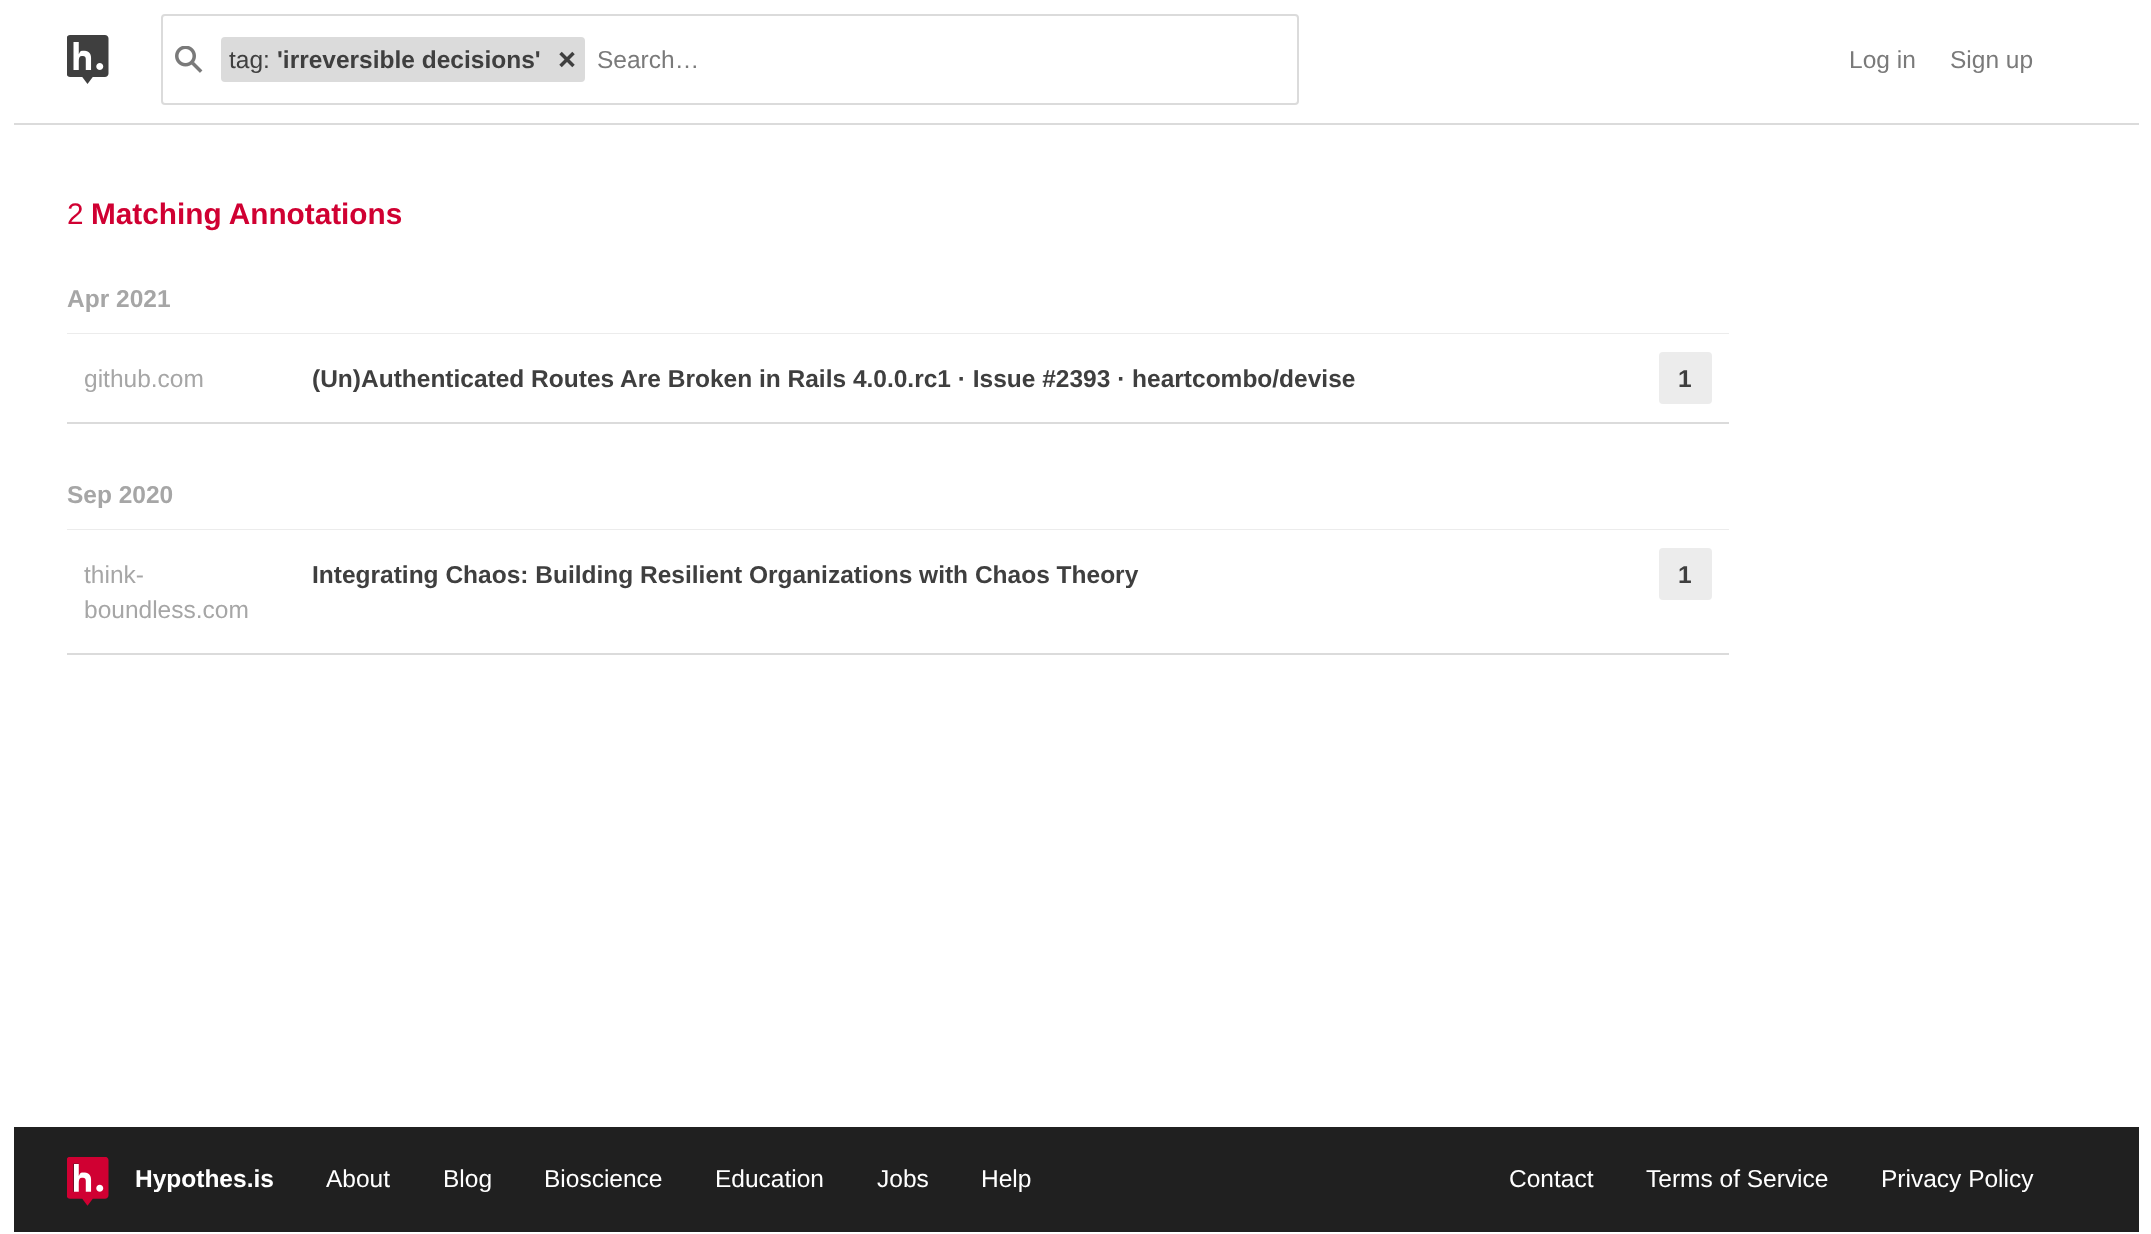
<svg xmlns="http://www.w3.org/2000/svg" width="2151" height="1234">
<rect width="100%" height="100%" fill="#fff"/>
<rect x="14" y="123" width="2125" height="2" fill="#dbdbdb"/>
<image x="67" y="35" width="42" height="49" href="media/1.png"/>
<rect x="162" y="15" width="1136" height="89" rx="3" fill="none" stroke="#dbdbdb" stroke-width="2"/>
<image x="175" y="46" width="28" height="27" href="media/2.png"/>
<rect x="221" y="37" width="364" height="45" rx="4" fill="#dbdbdb"/>
<text x="229" y="68" style="font-family:Liberation Sans;font-size:24.5px;fill:#3f3f3f">tag:</text>
<text x="277" y="68" style="font-family:Liberation Sans;font-size:24.5px;font-weight:bold;fill:#3f3f3f">'irreversible decisions'</text>
<image x="559" y="51" width="16" height="17" href="media/3.png"/>
<text x="597" y="68" style="font-family:Liberation Sans;font-size:24.5px;fill:#7a7a7a">Search…</text>
<text x="1849" y="68" style="font-family:Liberation Sans;font-size:24.5px;fill:#7a7a7a">Log in</text>
<text x="1950" y="68" style="font-family:Liberation Sans;font-size:24.5px;fill:#7a7a7a">Sign up</text>
<text x="67" y="224" style="font-family:Liberation Sans;font-size:29.75px;fill:#d00032">2</text>
<text x="91" y="224" style="font-family:Liberation Sans;font-size:29.75px;font-weight:bold;fill:#d00032">Matching Annotations</text>
<rect x="67" y="333" width="1662" height="1" fill="#ececec"/>
<text x="67" y="307" style="font-family:Liberation Sans;font-size:24.5px;font-weight:bold;fill:#a6a6a6">Apr 2021</text>
<rect x="67" y="422" width="1662" height="2" fill="#dbdbdb"/>
<text x="84" y="387" style="font-family:Liberation Sans;font-size:24.5px;fill:#a6a6a6">github.com</text>
<text x="312" y="387" style="font-family:Liberation Sans;font-size:24.5px;font-weight:bold;fill:#3f3f3f">(Un)Authenticated Routes Are Broken in Rails 4.0.0.rc1 · Issue #2393 · heartcombo/devise</text>
<rect x="1659" y="352" width="53" height="52" rx="4" fill="#ececec"/>
<text x="1678" y="387" style="font-family:Liberation Sans;font-size:24.5px;font-weight:bold;fill:#3f3f3f">1</text>
<rect x="67" y="529" width="1662" height="1" fill="#ececec"/>
<text x="67" y="503" style="font-family:Liberation Sans;font-size:24.5px;font-weight:bold;fill:#a6a6a6">Sep 2020</text>
<rect x="67" y="653" width="1662" height="2" fill="#dbdbdb"/>
<text x="84" y="583" style="font-family:Liberation Sans;font-size:24.5px;fill:#a6a6a6">think-</text>
<text x="84" y="618" style="font-family:Liberation Sans;font-size:24.5px;fill:#a6a6a6">boundless.com</text>
<text x="312" y="583" style="font-family:Liberation Sans;font-size:24.5px;font-weight:bold;fill:#3f3f3f">Integrating Chaos: Building Resilient Organizations with Chaos Theory</text>
<rect x="1659" y="548" width="53" height="52" rx="4" fill="#ececec"/>
<text x="1678" y="583" style="font-family:Liberation Sans;font-size:24.5px;font-weight:bold;fill:#3f3f3f">1</text>
<rect x="14" y="1127" width="2125" height="105" fill="#202020"/>
<image x="67" y="1157" width="42" height="49" href="media/4.png"/>
<text x="135" y="1187" style="font-family:Liberation Sans;font-size:24.5px;font-weight:bold;fill:#fff">Hypothes.is</text>
<text x="326" y="1187" style="font-family:Liberation Sans;font-size:24.5px;fill:#fff">About</text>
<text x="443" y="1187" style="font-family:Liberation Sans;font-size:24.5px;fill:#fff">Blog</text>
<text x="544" y="1187" style="font-family:Liberation Sans;font-size:24.5px;fill:#fff">Bioscience</text>
<text x="715" y="1187" style="font-family:Liberation Sans;font-size:24.5px;fill:#fff">Education</text>
<text x="877" y="1187" style="font-family:Liberation Sans;font-size:24.5px;fill:#fff">Jobs</text>
<text x="981" y="1187" style="font-family:Liberation Sans;font-size:24.5px;fill:#fff">Help</text>
<text x="1509" y="1187" style="font-family:Liberation Sans;font-size:24.5px;fill:#fff">Contact</text>
<text x="1646" y="1187" style="font-family:Liberation Sans;font-size:24.5px;fill:#fff">Terms of Service</text>
<text x="1881" y="1187" style="font-family:Liberation Sans;font-size:24.5px;fill:#fff">Privacy Policy</text>
</svg>
